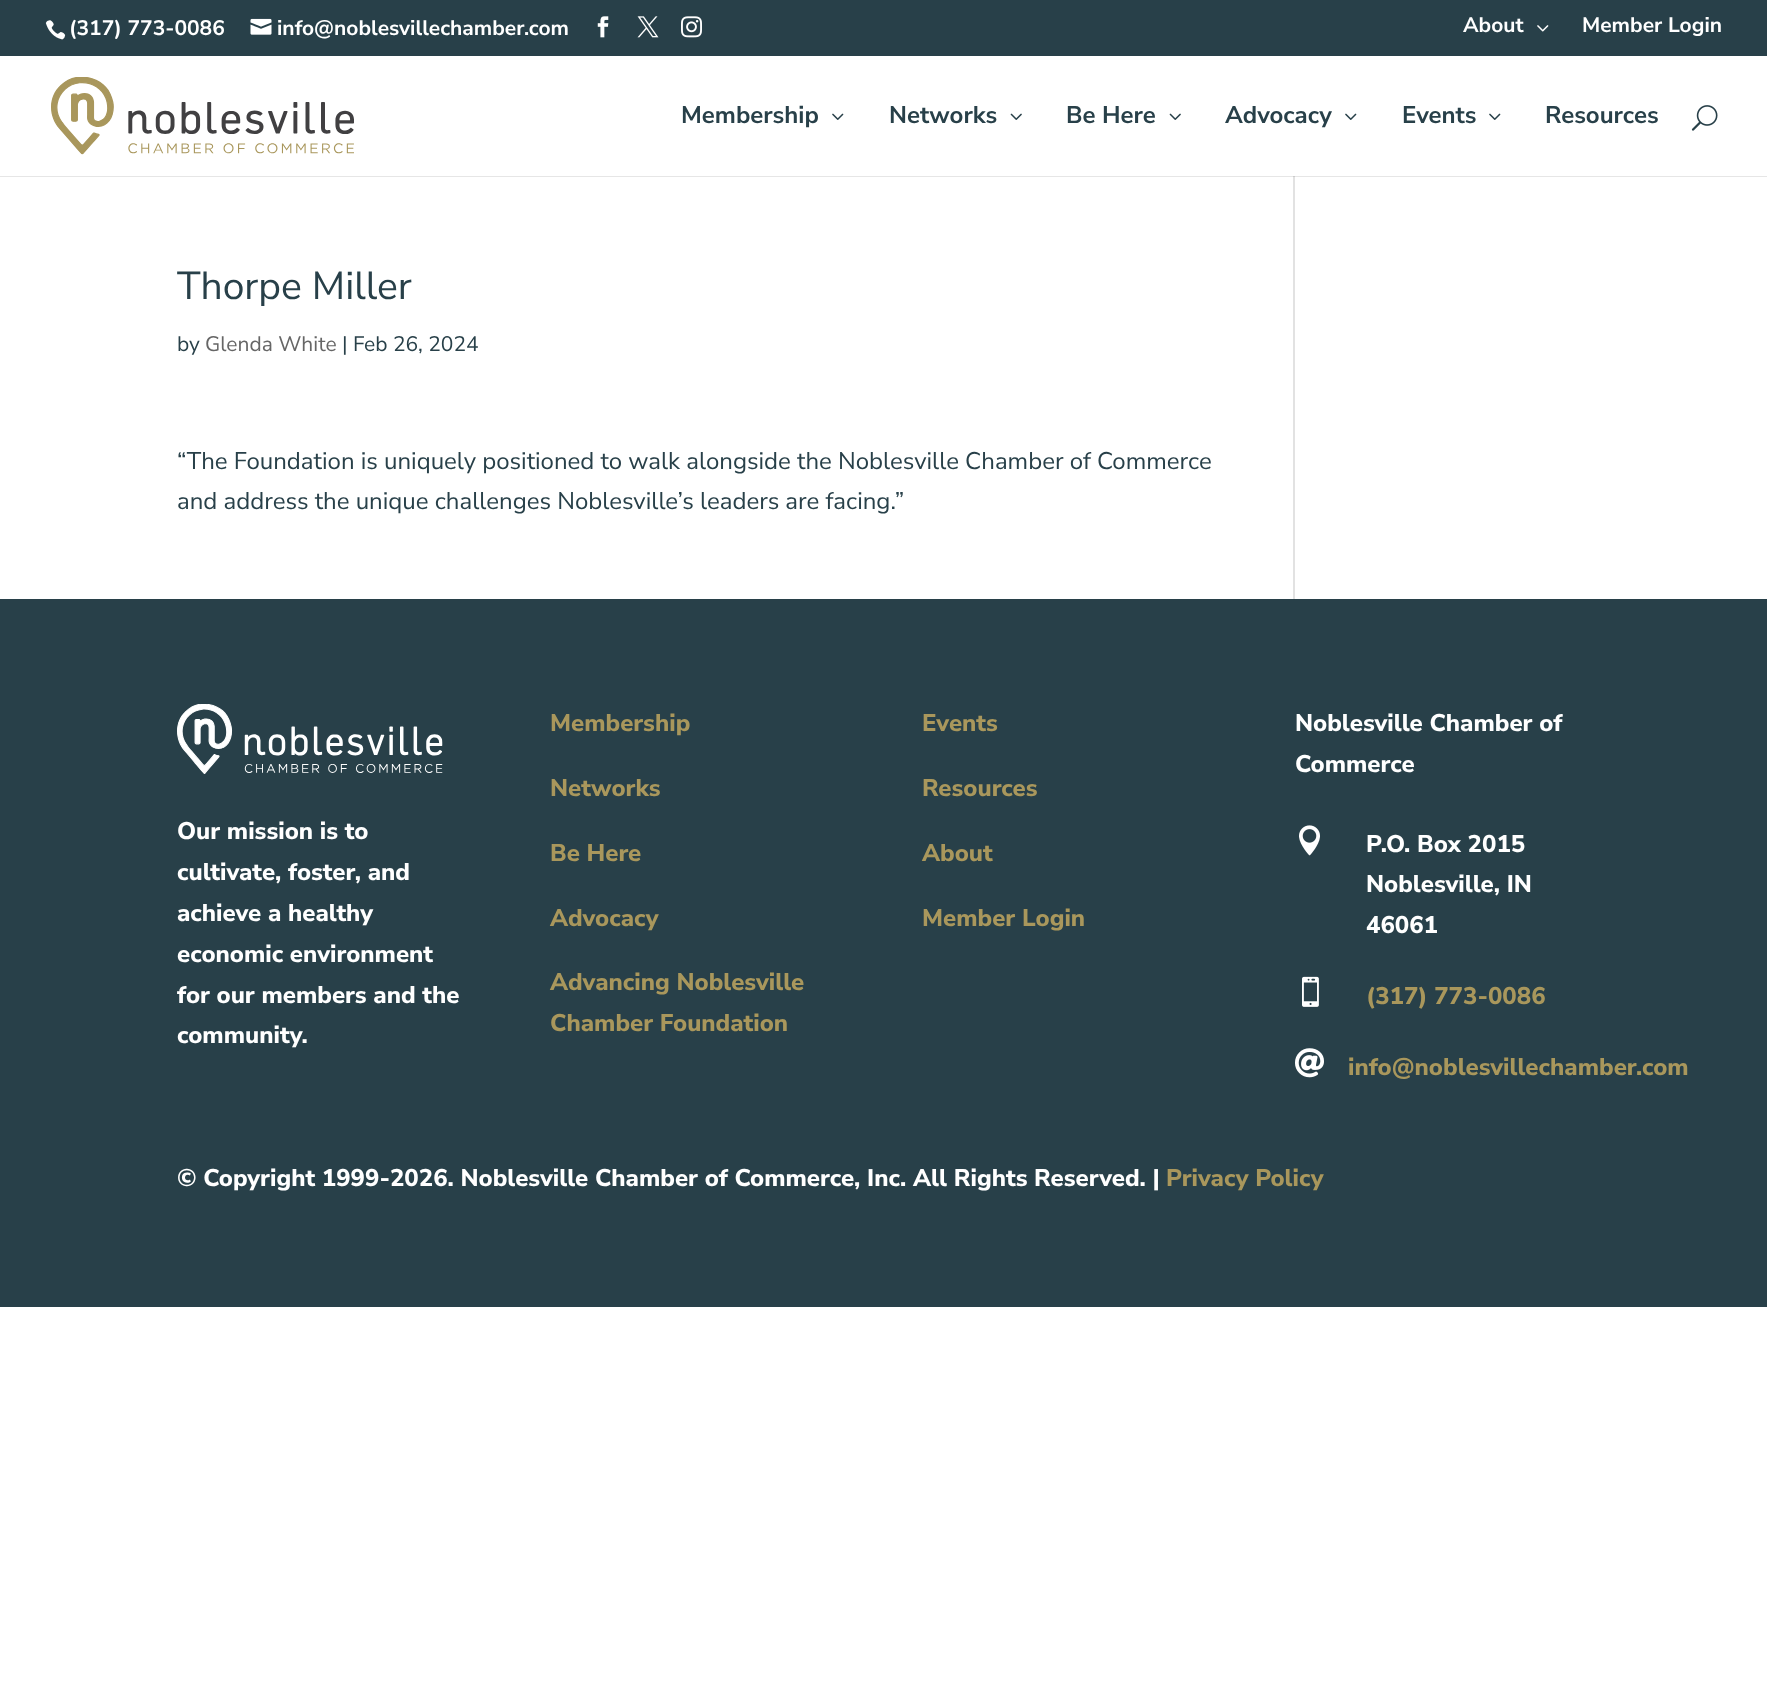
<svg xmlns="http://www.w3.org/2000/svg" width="1767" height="1689">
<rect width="100%" height="100%" fill="#fff"/>
<rect y="176" width="1767" height="1" fill="#e6e6e6"/>
<rect width="1767" height="56" fill="#284049"/>
<image x="45" y="20" width="21" height="20" href="media/1.png"/>
<text x="69" y="35" style="font-family:Nunito Sans;font-size:21px;font-weight:bold;fill:#fff">(317) 773-0086</text>
<image x="250" y="18" width="22" height="17" href="media/2.png"/>
<text x="277" y="35" style="font-family:Nunito Sans;font-size:21px;font-weight:bold;fill:#fff">info@noblesvillechamber.com</text>
<image x="597" y="16" width="12" height="22" href="media/3.png"/>
<image x="637" y="16" width="22" height="22" href="media/4.png"/>
<image x="681" y="16" width="21" height="22" href="media/5.png"/>
<text x="1463" y="32" style="font-family:Nunito Sans;font-size:21px;font-weight:bold;fill:#fff">About</text>
<image x="1537" y="25" width="12" height="7" href="media/6.png"/>
<text x="1582" y="32" style="font-family:Nunito Sans;font-size:21px;font-weight:bold;fill:#fff">Member Login</text>
<image x="51" y="77" width="303" height="78" href="media/7.png"/>
<text x="681" y="123" style="font-family:Nunito Sans;font-size:24px;font-weight:bold;fill:#284049">Membership</text>
<image x="832" y="113" width="12" height="7" href="media/8.png"/>
<text x="889" y="123" style="font-family:Nunito Sans;font-size:24px;font-weight:bold;fill:#284049">Networks</text>
<image x="1010" y="113" width="12" height="7" href="media/9.png"/>
<text x="1066" y="123" style="font-family:Nunito Sans;font-size:24px;font-weight:bold;fill:#284049">Be Here</text>
<image x="1169" y="113" width="12" height="7" href="media/9.png"/>
<text x="1225" y="123" style="font-family:Nunito Sans;font-size:24px;font-weight:bold;fill:#284049">Advocacy</text>
<image x="1345" y="113" width="12" height="7" href="media/8.png"/>
<text x="1402" y="123" style="font-family:Nunito Sans;font-size:24px;font-weight:bold;fill:#284049">Events</text>
<image x="1489" y="113" width="12" height="7" href="media/8.png"/>
<text x="1545" y="123" style="font-family:Nunito Sans;font-size:24px;font-weight:bold;fill:#284049">Resources</text>
<image x="1691" y="105" width="27" height="26" href="media/10.png"/>
<text x="177" y="299" style="font-family:Nunito Sans;font-size:39px;fill:#284049">Thorpe Miller</text>
<text x="177" y="351" style="font-family:Nunito Sans;font-size:21px;fill:#284049">by</text>
<text x="205" y="351" style="font-family:Nunito Sans;font-size:21px;fill:#666">Glenda White</text>
<text x="342" y="351" style="font-family:Nunito Sans;font-size:21px;fill:#284049">| Feb 26, 2024</text>
<text x="177" y="469" style="font-family:Nunito Sans;font-size:24px;fill:#284049">“The Foundation is uniquely positioned to walk alongside the Noblesville Chamber of Commerce</text>
<text x="177" y="509" style="font-family:Nunito Sans;font-size:24px;fill:#284049">and address the unique challenges Noblesville’s leaders are facing.”</text>
<rect x="1293" y="176" width="2" height="423" fill="#e2e2e2"/>
<rect x="1293" y="176" width="2" height="1" fill="#cbcbcb"/>
<rect y="599" width="1767" height="708" fill="#284049"/>
<image x="177" y="704" width="266" height="70" href="media/11.png"/>
<text x="177" y="839" style="font-family:Nunito Sans;font-size:24px;font-weight:800;fill:#fff">Our mission is to</text>
<text x="177" y="880" style="font-family:Nunito Sans;font-size:24px;font-weight:800;fill:#fff">cultivate, foster, and</text>
<text x="177" y="921" style="font-family:Nunito Sans;font-size:24px;font-weight:800;fill:#fff">achieve a healthy</text>
<text x="177" y="962" style="font-family:Nunito Sans;font-size:24px;font-weight:800;fill:#fff">economic environment</text>
<text x="177" y="1003" style="font-family:Nunito Sans;font-size:24px;font-weight:800;fill:#fff">for our members and the</text>
<text x="177" y="1043" style="font-family:Nunito Sans;font-size:24px;font-weight:800;fill:#fff">community.</text>
<text x="550" y="731" style="font-family:Nunito Sans;font-size:24px;font-weight:800;fill:#a9975c">Membership</text>
<text x="550" y="796" style="font-family:Nunito Sans;font-size:24px;font-weight:800;fill:#a9975c">Networks</text>
<text x="550" y="861" style="font-family:Nunito Sans;font-size:24px;font-weight:800;fill:#a9975c">Be Here</text>
<text x="550" y="926" style="font-family:Nunito Sans;font-size:24px;font-weight:800;fill:#a9975c">Advocacy</text>
<text x="550" y="990" style="font-family:Nunito Sans;font-size:24px;font-weight:800;fill:#a9975c">Advancing Noblesville</text>
<text x="550" y="1031" style="font-family:Nunito Sans;font-size:24px;font-weight:800;fill:#a9975c">Chamber Foundation</text>
<text x="922" y="731" style="font-family:Nunito Sans;font-size:24px;font-weight:800;fill:#a9975c">Events</text>
<text x="922" y="796" style="font-family:Nunito Sans;font-size:24px;font-weight:800;fill:#a9975c">Resources</text>
<text x="922" y="861" style="font-family:Nunito Sans;font-size:24px;font-weight:800;fill:#a9975c">About</text>
<text x="922" y="926" style="font-family:Nunito Sans;font-size:24px;font-weight:800;fill:#a9975c">Member Login</text>
<text x="1295" y="731" style="font-family:Nunito Sans;font-size:24px;font-weight:800;fill:#fff">Noblesville Chamber of</text>
<text x="1295" y="772" style="font-family:Nunito Sans;font-size:24px;font-weight:800;fill:#fff">Commerce</text>
<image x="1299" y="825" width="21" height="31" href="media/12.png"/>
<text x="1366" y="852" style="font-family:Nunito Sans;font-size:24px;font-weight:800;fill:#fff">P.O. Box 2015</text>
<text x="1366" y="892" style="font-family:Nunito Sans;font-size:24px;font-weight:800;fill:#fff">Noblesville, IN</text>
<text x="1366" y="933" style="font-family:Nunito Sans;font-size:24px;font-weight:800;fill:#fff">46061</text>
<image x="1302" y="976" width="17" height="31" href="media/13.png"/>
<text x="1366" y="1004" style="font-family:Nunito Sans;font-size:24px;font-weight:800;fill:#a9975c">(317) 773-0086</text>
<image x="1295" y="1048" width="29" height="30" href="media/14.png"/>
<text x="1348" y="1075" style="font-family:Nunito Sans;font-size:24px;font-weight:800;fill:#a9975c">info@noblesvillechamber.com</text>
<text x="177" y="1186" style="font-family:Nunito Sans;font-size:24px;font-weight:800;fill:#fff">© Copyright 1999-2026. Noblesville Chamber of Commerce, Inc. All Rights Reserved. |</text>
<text x="1166" y="1186" style="font-family:Nunito Sans;font-size:24px;font-weight:800;fill:#a9975c">Privacy Policy</text>
</svg>
